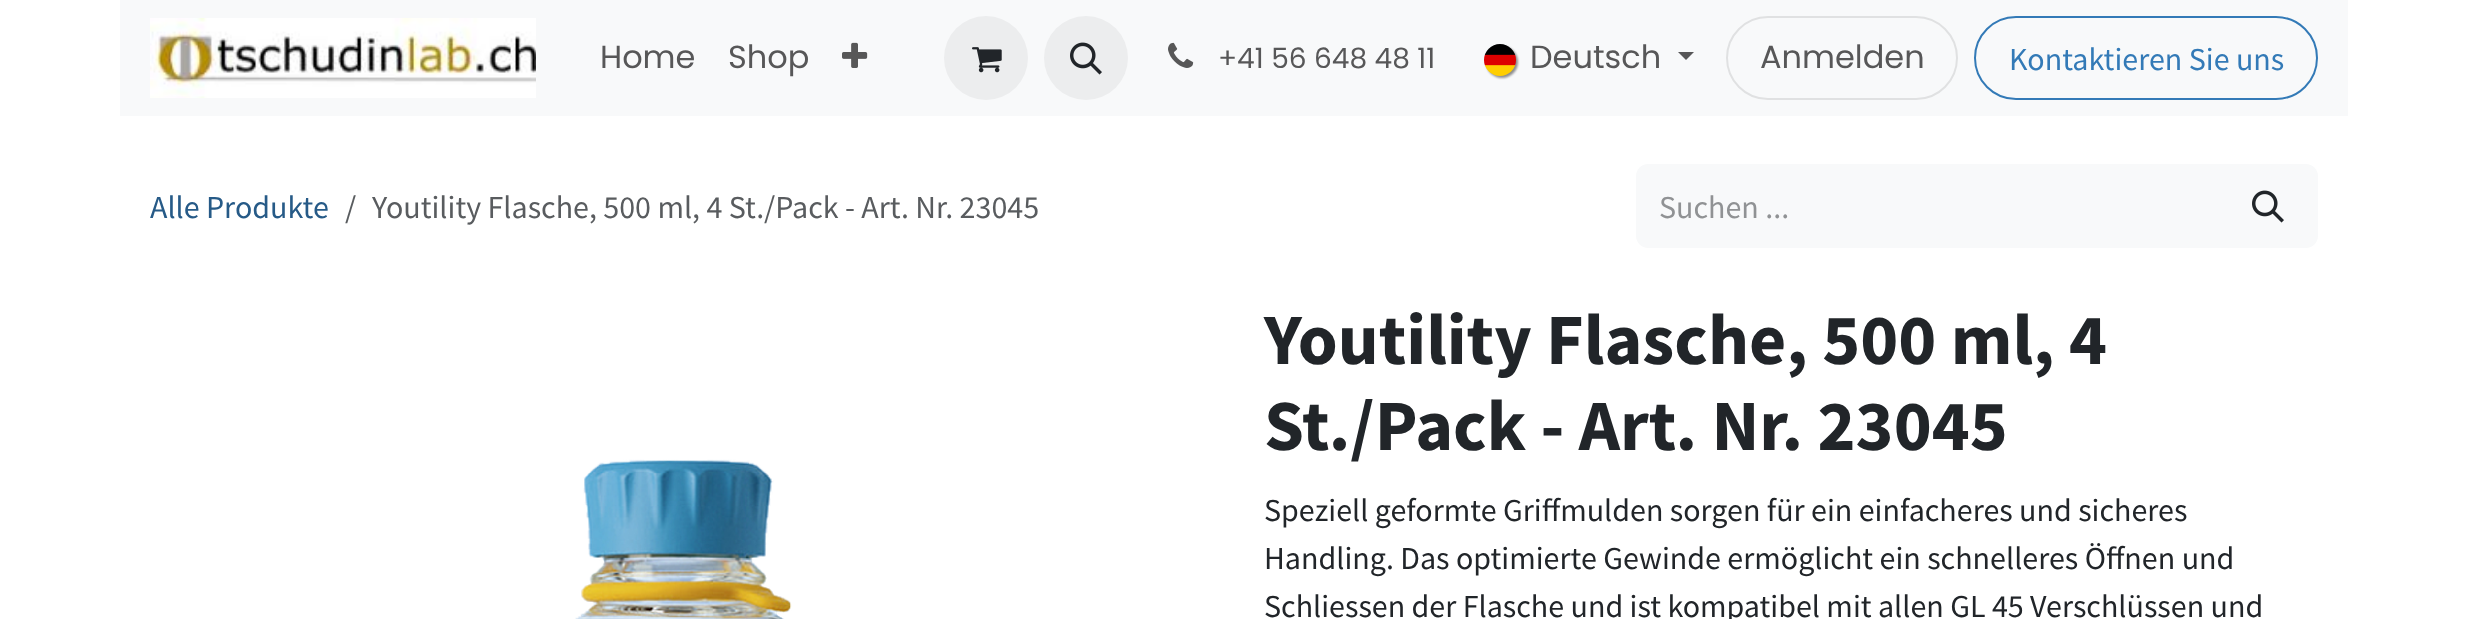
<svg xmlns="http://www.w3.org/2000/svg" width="2467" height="619">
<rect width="100%" height="100%" fill="#fff"/>
<rect x="120" width="2228" height="116" fill="#f8f9fa"/>
<image x="150" y="18" width="386" height="80" href="media/1.png"/>
<text x="600" y="68" style="font-family:Poppins;font-size:32px;fill:#575758">Home</text>
<text x="728" y="68" style="font-family:Poppins;font-size:32px;fill:#575758">Shop</text>
<image x="842" y="42" width="26" height="26" href="media/2.png"/>
<circle cx="986" cy="58" r="42" fill="#ecedee"/>
<image x="972" y="47" width="30" height="26" href="media/3.png"/>
<circle cx="1086" cy="58" r="42" fill="#ecedee"/>
<image x="1070" y="42" width="32" height="33" href="media/4.png"/>
<image x="1168" y="42" width="26" height="26" href="media/5.png"/>
<text x="1218" y="68" style="font-family:Poppins;font-size:28px;fill:#575758">+41 56 648 48 11</text>
<rect x="1486" y="46" width="32" height="32" rx="16" fill="#0000006e" filter="blur(1px)"/>
<image x="1484" y="44" width="32" height="32" href="media/6.png"/>
<text x="1530" y="68" style="font-family:Poppins;font-size:32px;fill:#575758">Deutsch</text>
<path d="M1678 52h16l-8 8z" fill="#575758"/>
<rect x="1727" y="17" width="230" height="82" rx="41" fill="none" stroke="#e0e1e2" stroke-width="2"/>
<text x="1760" y="68" style="font-family:Poppins;font-size:32px;fill:#575758">Anmelden</text>
<rect x="1975" y="17" width="342" height="82" rx="41" fill="none" stroke="#337ab7" stroke-width="2"/>
<text x="2009" y="70" style="font-family:Source Sans Pro;font-size:32px;fill:#337ab7">Kontaktieren Sie uns</text>
<text x="150" y="218" style="font-family:Source Sans Pro;font-size:32px;fill:#265a87">Alle Produkte</text>
<text x="345" y="218" style="font-family:Source Sans Pro;font-size:32px;fill:#595c5f">/</text>
<text x="372" y="218" style="font-family:Source Sans Pro;font-size:32px;fill:#595c5f">Youtility Flasche, 500 ml, 4 St./Pack - Art. Nr. 23045</text>
<path d="M1648 164h572v84h-572c-6.5 0-12-5.5-12-12v-60c0-6.5 5.5-12 12-12z" fill="#f8f9fa"/>
<text x="1659" y="218" style="font-family:Source Sans Pro;font-size:32px;fill:#909294">Suchen ...</text>
<path d="M2218 164h88c6.5 0 12 5.5 12 12v60c0 6.5-5.5 12-12 12h-88z" fill="#f8f9fa"/>
<image x="2252" y="190" width="32" height="33" href="media/7.png"/>
<image x="575" y="459" width="217" height="160" href="media/8.png"/>
<text x="1264" y="364" style="font-family:Source Sans Pro;font-size:72px;font-weight:bold;fill:#212529">Youtility Flasche, 500 ml, 4</text>
<text x="1264" y="450" style="font-family:Source Sans Pro;font-size:72px;font-weight:bold;fill:#212529">St./Pack - Art. Nr. 23045</text>
<text x="1264" y="521" style="font-family:Source Sans Pro;font-size:32px;fill:#212529">Speziell geformte Griffmulden sorgen für ein einfacheres und sicheres</text>
<text x="1264" y="569" style="font-family:Source Sans Pro;font-size:32px;fill:#212529">Handling. Das optimierte Gewinde ermöglicht ein schnelleres Öffnen und</text>
<text x="1264" y="617" style="font-family:Source Sans Pro;font-size:32px;fill:#212529">Schliessen der Flasche und ist kompatibel mit allen GL 45 Verschlüssen und</text>
</svg>
